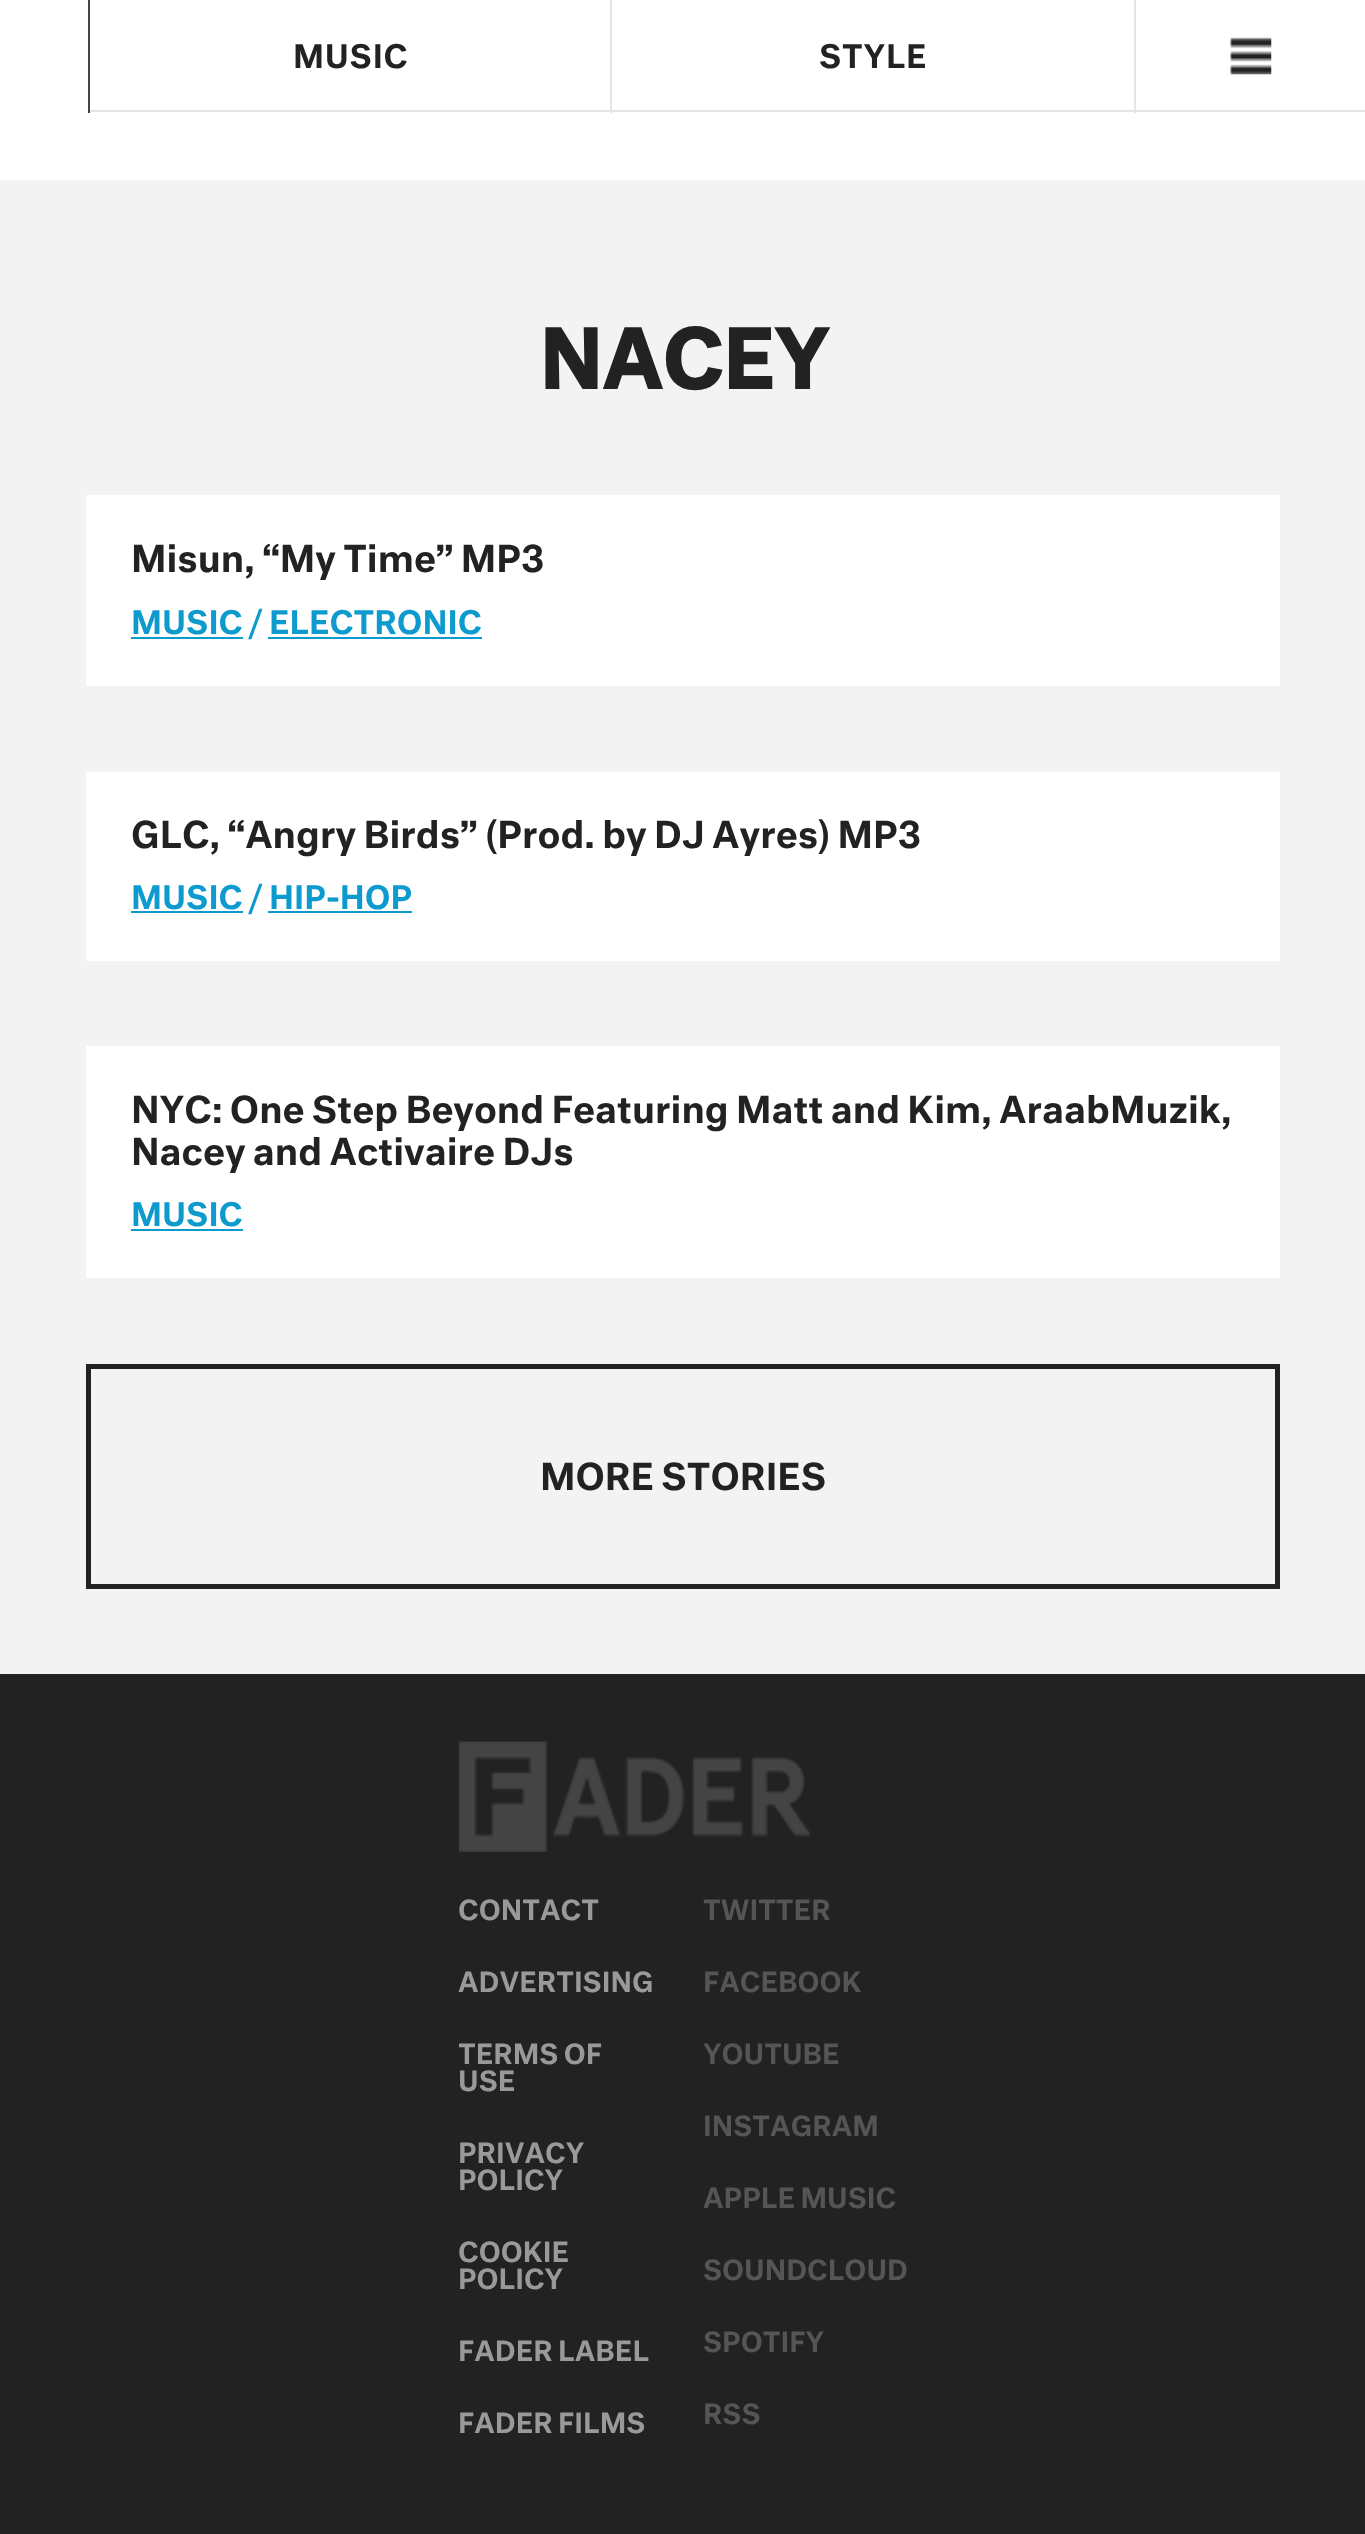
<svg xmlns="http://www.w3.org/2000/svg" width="1365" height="2534">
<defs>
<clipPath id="clip1"><rect x="459" y="1897" width="450" height="630"/></clipPath>
</defs>
<rect width="100%" height="100%" fill="#fff"/>
<rect x="88" width="2" height="113" fill="#444"/>
<rect x="610" width="2" height="113" fill="#e5e5e5"/>
<rect x="90" y="110" width="522" height="2" fill="#e5e5e5"/>
<text x="293" y="68" style="font-family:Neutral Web;font-size:31.5px;font-weight:500;letter-spacing:0.75px;fill:#222">MUSIC</text>
<rect x="1134" width="2" height="113" fill="#e5e5e5"/>
<rect x="612" y="110" width="753" height="2" fill="#e5e5e5"/>
<text x="819" y="68" style="font-family:Neutral Web;font-size:31.5px;font-weight:500;letter-spacing:0.75px;fill:#222">STYLE</text>
<image x="1230" y="37" width="42" height="38" href="media/1.png"/>
<rect y="180" width="1365" height="1494" fill="#f3f3f3"/>
<text x="539" y="389" style="font-family:Neutral Web;font-size:79px;font-weight:bold;fill:#222">NACEY</text>
<rect x="86" y="495" width="1194" height="191" fill="#fff"/>
<text x="131" y="572" style="font-family:Neutral Web;font-size:36px;font-weight:500;fill:#222">Misun, “My Time” MP3</text>
<rect x="131" y="637" width="112" height="2" fill="#0d9bcf"/>
<text x="131" y="634" style="font-family:Neutral Web;font-size:31.5px;font-weight:500;fill:#0d9bcf">MUSIC / ELECTRONIC</text>
<rect x="268" y="637" width="214" height="2" fill="#0d9bcf"/>
<rect x="86" y="772" width="1194" height="189" fill="#fff"/>
<text x="131" y="848" style="font-family:Neutral Web;font-size:36px;font-weight:500;fill:#222">GLC, “Angry Birds” (Prod. by DJ Ayres) MP3</text>
<rect x="131" y="911" width="112" height="2" fill="#0d9bcf"/>
<text x="131" y="909" style="font-family:Neutral Web;font-size:31.5px;font-weight:500;fill:#0d9bcf">MUSIC / HIP-HOP</text>
<rect x="268" y="911" width="144" height="2" fill="#0d9bcf"/>
<rect x="86" y="1046" width="1194" height="232" fill="#fff"/>
<text x="131" y="1123" style="font-family:Neutral Web;font-size:36px;font-weight:500;fill:#222">NYC: One Step Beyond Featuring Matt and Kim, AraabMuzik,</text>
<text x="131" y="1165" style="font-family:Neutral Web;font-size:36px;font-weight:500;fill:#222">Nacey and Activaire DJs</text>
<text x="131" y="1226" style="font-family:Neutral Web;font-size:31.5px;font-weight:500;fill:#0d9bcf">MUSIC</text>
<rect x="131" y="1229" width="112" height="2" fill="#0d9bcf"/>
<rect x="88.5" y="1366.5" width="1189" height="220" fill="none" stroke="#222" stroke-width="5"/>
<text x="540" y="1490" style="font-family:Neutral Web;font-size:36px;font-weight:500;fill:#222">MORE STORIES</text>
<rect y="1674" width="1365" height="860" fill="#222"/>
<image x="459" y="1741" width="351" height="111" href="media/2.png"/>
<text x="458" y="1920" style="font-family:Neutral Web;font-size:27px;font-weight:500;fill:#999">CONTACT</text>
<text x="458" y="1992" style="font-family:Neutral Web;font-size:27px;font-weight:500;fill:#999">ADVERTISING</text>
<g clip-path="url(#clip1)">
<text x="458" y="2064" style="font-family:Neutral Web;font-size:27px;font-weight:500;fill:#999">TERMS OF</text>
</g>
<text x="458" y="2091" style="font-family:Neutral Web;font-size:27px;font-weight:500;fill:#999">USE</text>
<text x="458" y="2163" style="font-family:Neutral Web;font-size:27px;font-weight:500;fill:#999">PRIVACY</text>
<text x="458" y="2190" style="font-family:Neutral Web;font-size:27px;font-weight:500;fill:#999">POLICY</text>
<text x="458" y="2262" style="font-family:Neutral Web;font-size:27px;font-weight:500;fill:#999">COOKIE</text>
<text x="458" y="2289" style="font-family:Neutral Web;font-size:27px;font-weight:500;fill:#999">POLICY</text>
<text x="458" y="2361" style="font-family:Neutral Web;font-size:27px;font-weight:500;fill:#999">FADER LABEL</text>
<text x="458" y="2433" style="font-family:Neutral Web;font-size:27px;font-weight:500;fill:#999">FADER FILMS</text>
<text x="703" y="1920" style="font-family:Neutral Web;font-size:27px;font-weight:500;fill:#555">TWITTER</text>
<text x="703" y="1992" style="font-family:Neutral Web;font-size:27px;font-weight:500;fill:#555">FACEBOOK</text>
<text x="703" y="2064" style="font-family:Neutral Web;font-size:27px;font-weight:500;fill:#555">YOUTUBE</text>
<text x="703" y="2136" style="font-family:Neutral Web;font-size:27px;font-weight:500;fill:#555">INSTAGRAM</text>
<text x="703" y="2208" style="font-family:Neutral Web;font-size:27px;font-weight:500;fill:#555">APPLE MUSIC</text>
<text x="703" y="2280" style="font-family:Neutral Web;font-size:27px;font-weight:500;fill:#555">SOUNDCLOUD</text>
<text x="703" y="2352" style="font-family:Neutral Web;font-size:27px;font-weight:500;fill:#555">SPOTIFY</text>
<text x="703" y="2424" style="font-family:Neutral Web;font-size:27px;font-weight:500;fill:#555">RSS</text>
</svg>
